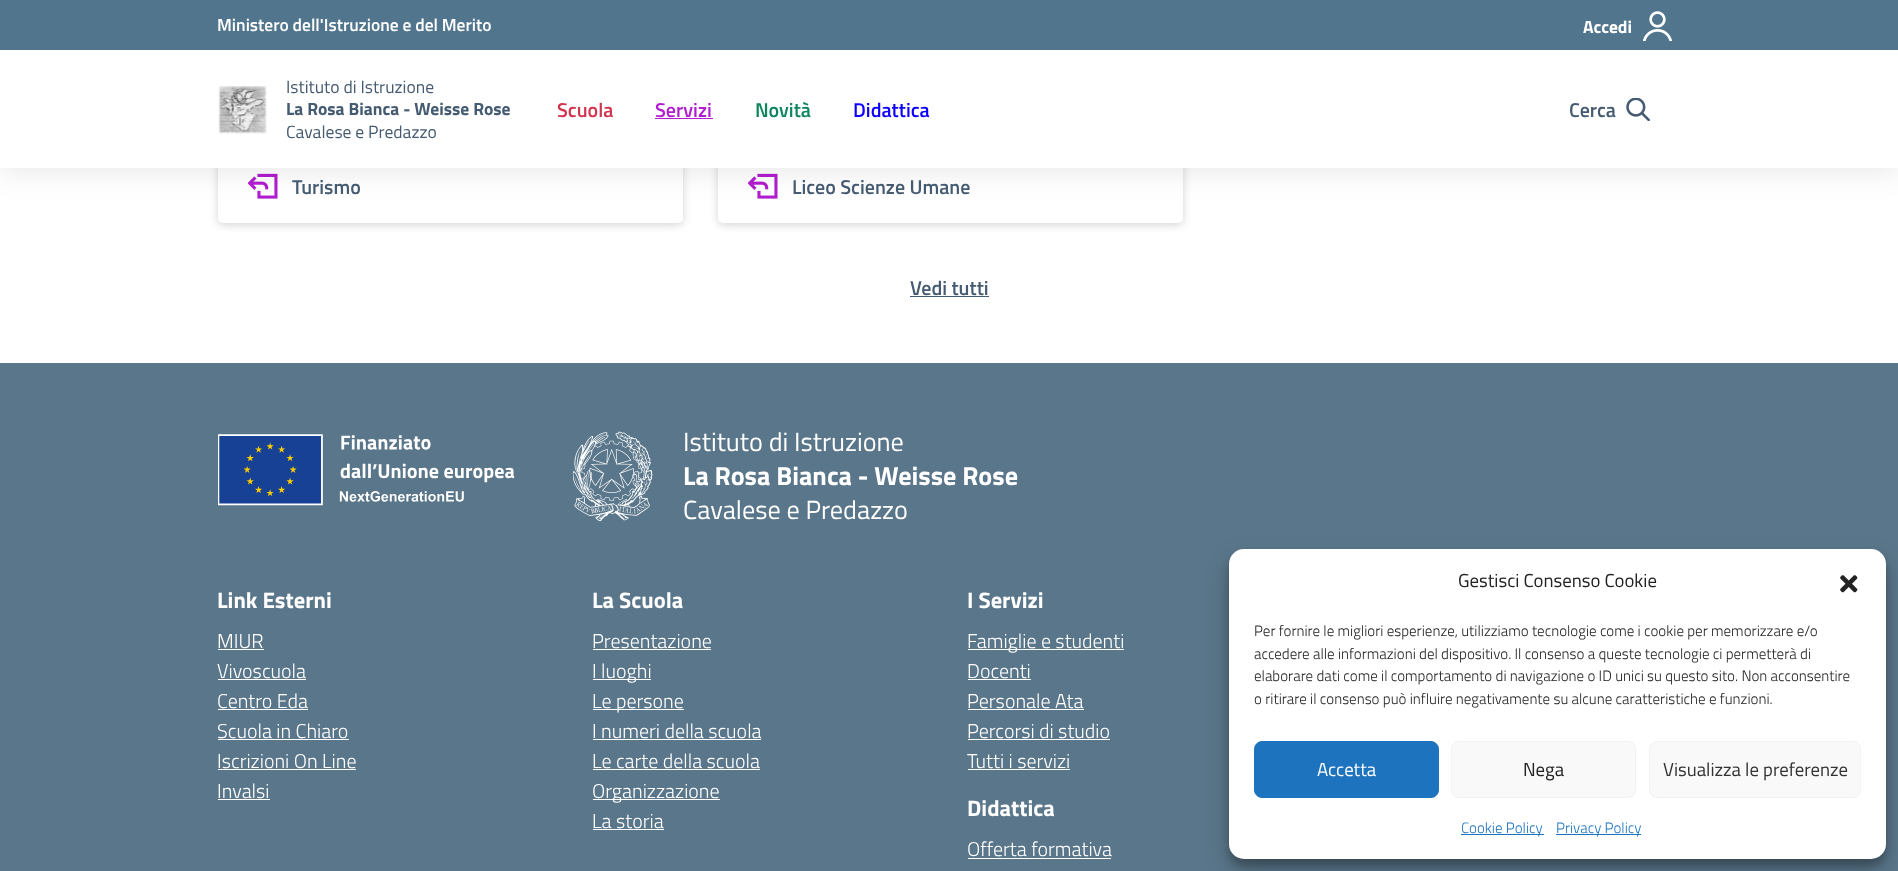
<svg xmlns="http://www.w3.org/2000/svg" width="1898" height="871">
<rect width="100%" height="100%" fill="#fff"/>
<rect x="218" y="149" width="465" height="76" rx="5" fill="#0000002b" filter="blur(4.5px)"/>
<rect x="218" y="146" width="465" height="77" rx="5" fill="#fff"/>
<image x="248" y="173" width="30" height="26" href="media/4.png"/>
<rect x="718" y="149" width="465" height="76" rx="5" fill="#0000002b" filter="blur(4.5px)"/>
<rect x="718" y="146" width="465" height="77" rx="5" fill="#fff"/>
<image x="748" y="173" width="30" height="26" href="media/4.png"/>
<rect y="3" width="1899" height="167" fill="#0000001a" filter="blur(15.5px)"/>
<rect y="50" width="1898" height="118" fill="#fff"/>
<rect width="1898" height="50" fill="#51758d"/>
<text x="217" y="31" style="font-family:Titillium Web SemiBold;font-size:17.5px;font-weight:600;fill:#fff">Ministero dell'Istruzione e del Merito</text>
<text x="1583" y="33" style="font-family:Titillium Web;font-size:17.5px;font-weight:bold;fill:#fff">Accedi</text>
<image x="1643" y="11" width="30" height="30" href="media/1.png"/>
<image x="218" y="86" width="49" height="48" href="media/2.png"/>
<text x="286" y="93" style="font-family:Titillium Web;font-size:17.6px;fill:#455b71">Istituto di Istruzione</text>
<text x="286" y="115" style="font-family:Titillium Web;font-size:17.6px;font-weight:bold;fill:#455b71">La Rosa Bianca - Weisse Rose</text>
<text x="286" y="138" style="font-family:Titillium Web;font-size:17.6px;fill:#455b71">Cavalese e Predazzo</text>
<text x="557" y="117" style="font-family:Titillium Web SemiBold;font-size:20px;font-weight:600;fill:#d1344c">Scuola</text>
<text x="655" y="117" style="font-family:Titillium Web SemiBold;font-size:20px;font-weight:600;fill:#b21dd0">Servizi</text>
<rect x="655" y="118" width="58" height="1" fill="#b21dd0"/>
<text x="755" y="117" style="font-family:Titillium Web SemiBold;font-size:20px;font-weight:600;fill:#0e865c">Novità</text>
<text x="853" y="117" style="font-family:Titillium Web SemiBold;font-size:20px;font-weight:600;fill:#0d00ff">Didattica</text>
<text x="1569" y="117" style="font-family:Titillium Web SemiBold;font-size:20px;font-weight:600;fill:#455b71">Cerca</text>
<image x="1626" y="98" width="24" height="23" href="media/3.png"/>
<text x="292" y="194" style="font-family:Titillium Web SemiBold;font-size:20px;font-weight:600;fill:#455b71">Turismo</text>
<text x="792" y="194" style="font-family:Titillium Web SemiBold;font-size:20px;font-weight:600;fill:#455b71">Liceo Scienze Umane</text>
<text x="910" y="295" style="font-family:Titillium Web SemiBold;font-size:20px;font-weight:600;fill:#455b71">Vedi tutti</text>
<rect x="910" y="296" width="79" height="1" fill="#455b71"/>
<rect y="363" width="1898" height="508" fill="#5a768a"/>
<image x="218" y="434" width="297" height="72" href="media/5.png"/>
<image x="573" y="431" width="80" height="90" href="media/6.png"/>
<text x="683" y="451" style="font-family:Titillium Web;font-size:26.25px;fill:#fff">Istituto di Istruzione</text>
<text x="683" y="485" style="font-family:Titillium Web;font-size:26.25px;font-weight:bold;fill:#fff">La Rosa Bianca - Weisse Rose</text>
<text x="683" y="519" style="font-family:Titillium Web;font-size:26.25px;fill:#fff">Cavalese e Predazzo</text>
<text x="217" y="608" style="font-family:Titillium Web;font-size:22.5px;font-weight:bold;fill:#fff">Link Esterni</text>
<text x="217" y="648" style="font-family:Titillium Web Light;font-size:20px;font-weight:300;fill:#fff">MIUR</text>
<rect x="218" y="649" width="46" height="1" fill="#fff"/>
<text x="217" y="678" style="font-family:Titillium Web Light;font-size:20px;font-weight:300;fill:#fff">Vivoscuola</text>
<rect x="218" y="679" width="88" height="1" fill="#fff"/>
<text x="217" y="708" style="font-family:Titillium Web Light;font-size:20px;font-weight:300;fill:#fff">Centro Eda</text>
<rect x="218" y="709" width="90" height="1" fill="#fff"/>
<text x="217" y="738" style="font-family:Titillium Web Light;font-size:20px;font-weight:300;fill:#fff">Scuola in Chiaro</text>
<rect x="218" y="739" width="131" height="1" fill="#fff"/>
<text x="217" y="768" style="font-family:Titillium Web Light;font-size:20px;font-weight:300;fill:#fff">Iscrizioni On Line</text>
<rect x="218" y="769" width="138" height="1" fill="#fff"/>
<text x="217" y="798" style="font-family:Titillium Web Light;font-size:20px;font-weight:300;fill:#fff">Invalsi</text>
<rect x="218" y="799" width="52" height="1" fill="#fff"/>
<text x="592" y="608" style="font-family:Titillium Web;font-size:22.5px;font-weight:bold;fill:#fff">La Scuola</text>
<text x="592" y="648" style="font-family:Titillium Web Light;font-size:20px;font-weight:300;fill:#fff">Presentazione</text>
<rect x="593" y="649" width="118" height="1" fill="#fff"/>
<rect x="593" y="679" width="58" height="1" fill="#fff"/>
<text x="592" y="678" style="font-family:Titillium Web Light;font-size:20px;font-weight:300;fill:#fff">I luoghi</text>
<rect x="593" y="709" width="91" height="1" fill="#fff"/>
<text x="592" y="708" style="font-family:Titillium Web Light;font-size:20px;font-weight:300;fill:#fff">Le persone</text>
<text x="592" y="738" style="font-family:Titillium Web Light;font-size:20px;font-weight:300;fill:#fff">I numeri della scuola</text>
<rect x="593" y="739" width="168" height="1" fill="#fff"/>
<text x="592" y="768" style="font-family:Titillium Web Light;font-size:20px;font-weight:300;fill:#fff">Le carte della scuola</text>
<rect x="593" y="769" width="167" height="1" fill="#fff"/>
<rect x="593" y="799" width="127" height="1" fill="#fff"/>
<text x="592" y="798" style="font-family:Titillium Web Light;font-size:20px;font-weight:300;fill:#fff">Organizzazione</text>
<text x="592" y="828" style="font-family:Titillium Web Light;font-size:20px;font-weight:300;fill:#fff">La storia</text>
<rect x="593" y="829" width="71" height="1" fill="#fff"/>
<text x="967" y="608" style="font-family:Titillium Web;font-size:22.5px;font-weight:bold;fill:#fff">I Servizi</text>
<rect x="968" y="649" width="156" height="1" fill="#fff"/>
<text x="967" y="648" style="font-family:Titillium Web Light;font-size:20px;font-weight:300;fill:#fff">Famiglie e studenti</text>
<text x="967" y="678" style="font-family:Titillium Web Light;font-size:20px;font-weight:300;fill:#fff">Docenti</text>
<rect x="968" y="679" width="63" height="1" fill="#fff"/>
<text x="967" y="708" style="font-family:Titillium Web Light;font-size:20px;font-weight:300;fill:#fff">Personale Ata</text>
<rect x="968" y="709" width="116" height="1" fill="#fff"/>
<text x="967" y="738" style="font-family:Titillium Web Light;font-size:20px;font-weight:300;fill:#fff">Percorsi di studio</text>
<rect x="968" y="739" width="142" height="1" fill="#fff"/>
<text x="967" y="768" style="font-family:Titillium Web Light;font-size:20px;font-weight:300;fill:#fff">Tutti i servizi</text>
<rect x="968" y="769" width="102" height="1" fill="#fff"/>
<text x="967" y="816" style="font-family:Titillium Web;font-size:22.5px;font-weight:bold;fill:#fff">Didattica</text>
<text x="967" y="856" style="font-family:Titillium Web Light;font-size:20px;font-weight:300;fill:#fff">Offerta formativa</text>
<rect x="968" y="858" width="143" height="1" fill="#fff"/>
<rect x="1229" y="556" width="657" height="310" rx="15" fill="#0000003b" filter="blur(4px)"/>
<rect x="1229" y="561" width="657" height="310" rx="15" fill="#00000030" filter="blur(12.5px)"/>
<rect x="1229" y="549" width="657" height="310" rx="15" fill="#fff"/>
<text x="1458" y="587" style="font-family:Titillium Web;font-size:18.75px;fill:#222">Gestisci Consenso Cookie</text>
<image x="1840" y="575" width="18" height="18" href="media/7.png"/>
<text x="1254" y="636" style="font-family:Titillium Web Light;font-size:15px;font-weight:300;fill:#222">Per fornire le migliori esperienze, utilizziamo tecnologie come i cookie per memorizzare e/o</text>
<text x="1254" y="659" style="font-family:Titillium Web Light;font-size:15px;font-weight:300;fill:#222">accedere alle informazioni del dispositivo. Il consenso a queste tecnologie ci permetterà di</text>
<text x="1254" y="681" style="font-family:Titillium Web Light;font-size:15px;font-weight:300;fill:#222">elaborare dati come il comportamento di navigazione o ID unici su questo sito. Non acconsentire</text>
<text x="1254" y="704" style="font-family:Titillium Web Light;font-size:15px;font-weight:300;fill:#222">o ritirare il consenso può influire negativamente su alcune caratteristiche e funzioni.</text>
<rect x="1254.5" y="741.5" width="184" height="56" rx="7.5" fill="#1e73be" stroke="#1e73be"/>
<text x="1317" y="776" style="font-family:Titillium Web;font-size:18.75px;fill:#fff">Accetta</text>
<rect x="1451.5" y="741.5" width="184" height="56" rx="7.5" fill="#f9f9f9" stroke="#f2f2f2"/>
<text x="1523" y="776" style="font-family:Titillium Web;font-size:18.75px;fill:#222">Nega</text>
<rect x="1649.5" y="741.5" width="211" height="56" rx="7.5" fill="#f9f9f9" stroke="#f2f2f2"/>
<text x="1663" y="776" style="font-family:Titillium Web;font-size:18.75px;fill:#333">Visualizza le preferenze</text>
<rect x="1461" y="834" width="83" height="1" fill="#1e73be"/>
<text x="1461" y="833" style="font-family:Titillium Web Light;font-size:15px;font-weight:300;fill:#1e73be">Cookie Policy</text>
<rect x="1556" y="834" width="85" height="1" fill="#1e73be"/>
<text x="1556" y="833" style="font-family:Titillium Web Light;font-size:15px;font-weight:300;fill:#1e73be">Privacy Policy</text>
</svg>
